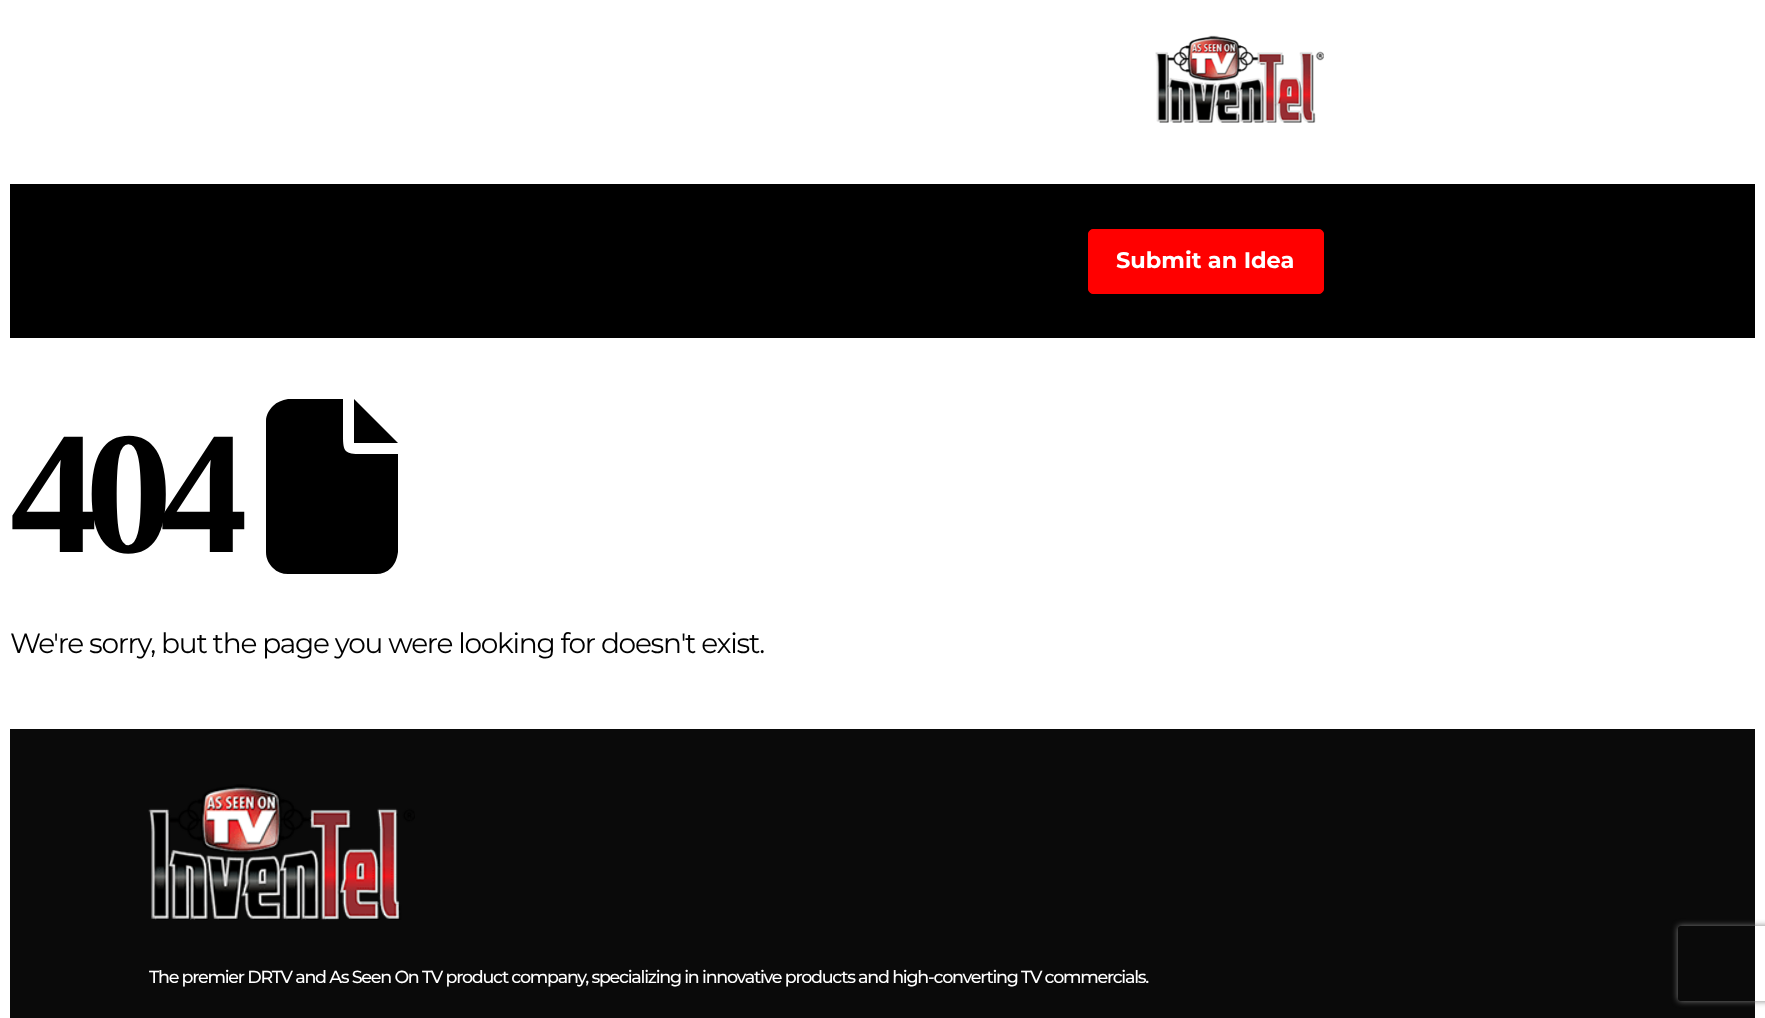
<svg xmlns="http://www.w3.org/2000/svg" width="1765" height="1018">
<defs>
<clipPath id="clip1"><path d="M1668 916h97v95h-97zm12.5 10h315c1.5 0 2.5 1 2.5 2.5v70c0 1.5-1 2.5-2.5 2.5h-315c-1.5 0-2.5-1-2.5-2.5v-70c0-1.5 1-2.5 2.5-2.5z" clip-rule="evenodd"/></clipPath>
</defs>
<rect width="100%" height="100%" fill="#fff"/>
<image x="1155" y="35" width="169" height="88" href="media/1.png"/>
<rect x="10" y="184" width="1745" height="154" fill="#000"/>
<rect x="1088.5" y="229.5" width="235" height="64" rx="4.5" fill="#f00" stroke="#f00"/>
<text x="1116" y="268" style="font-family:Montserrat;font-size:22.5px;font-weight:bold;fill:#fff">Submit an Idea</text>
<text x="10" y="552" style="font-family:Liberation Serif;font-size:175px;font-weight:bold;letter-spacing:-12.5px;fill:#000">404</text>
<path d="M266 421c0-6 3-11 7-15c4-4 9-6 15-7h55v37c0 16 2 18 18 18h37v98c-1 7-3 12-7 16c-4 4-9 6-15 6h-88c-6 0-11-2-15-6c-4-4-7-9-7-16zm132 22h-44v-44z" fill="#000"/>
<text x="10" y="653" style="font-family:Montserrat;font-size:28px;letter-spacing:-1.25px;fill:#000">We're sorry, but the page you were looking for doesn't exist.</text>
<rect x="10" y="729" width="1745" height="289" fill="#0a0a0a"/>
<image x="148" y="784" width="267" height="136" href="media/2.png"/>
<text x="149" y="983" style="font-family:Montserrat;font-size:17.5px;font-weight:500;letter-spacing:-1.25px;fill:#fff">The premier DRTV and As Seen On TV product company, specializing in innovative products and high-converting TV commercials.</text>
<g clip-path="url(#clip1)">
<rect x="1678" y="926" width="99" height="75" rx="2.5" fill="#808080" filter="blur(3px)"/>
</g>
</svg>
